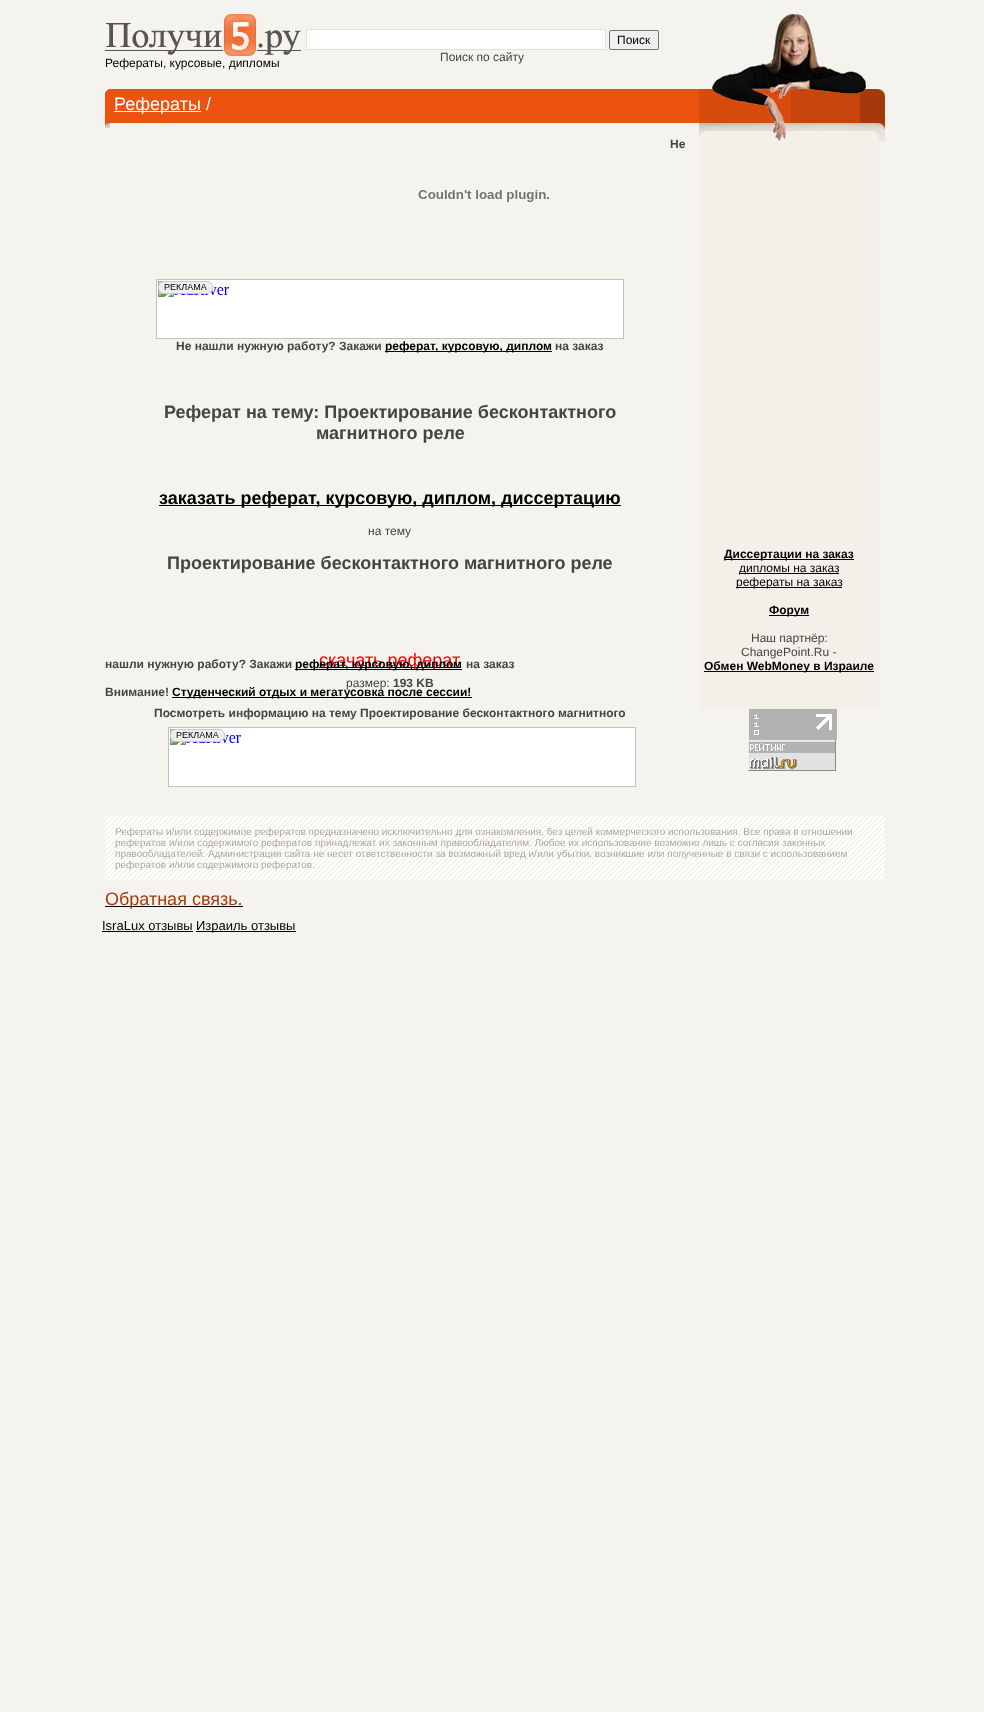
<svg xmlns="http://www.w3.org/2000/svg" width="984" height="1712">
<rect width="100%" height="100%" fill="#f5f3ed"/>
<image x="105" y="14" width="196" height="42" href="media/1.png"/>
<text x="105" y="67" style="font-family:Liberation Sans;font-size:12px;fill:#000">Рефераты, курсовые, дипломы</text>
<rect x="306.5" y="29.5" width="299" height="20" fill="#fff" stroke="#e4e0d2"/>
<rect x="609.5" y="30.5" width="49" height="19" rx="1.5" fill="#efefef" stroke="#767676"/>
<text x="617" y="44" style="font-family:Liberation Sans;font-size:12px;fill:#000">Поиск</text>
<text x="440" y="61" style="font-family:Liberation Sans;font-size:12px;fill:#444">Поиск по сайту</text>
<image x="712" y="14" width="154" height="75" href="media/2.png"/>
<rect x="105" y="89" width="594" height="34" fill="#ec5210"/>
<image x="105" y="89" width="4" height="4" href="media/3.png"/>
<rect x="114" y="111" width="87" height="1" fill="#fff"/>
<text x="114" y="110" style="font-family:Liberation Sans;font-size:18px;fill:#fff">Рефераты</text>
<text x="206" y="110" style="font-family:Liberation Sans;font-size:18px;fill:#f5f3ed">/</text>
<image x="699" y="89" width="186" height="34" href="media/4.png"/>
<text x="670" y="148" style="font-family:Liberation Sans;font-size:12px;font-weight:bold;fill:#444">Не</text>
<image x="105" y="123" width="5" height="5" href="media/5.png"/>
<image x="418" y="190" width="131" height="12" href="media/6.png"/>
<image x="156" y="279" width="468" height="60" href="media/7.png"/>
<text x="176" y="350" style="font-family:Liberation Sans;font-size:12px;font-weight:bold;fill:#444">Не нашли нужную работу? Закажи</text>
<rect x="385" y="351" width="167" height="1" fill="#000"/>
<text x="385" y="350" style="font-family:Liberation Sans;font-size:12px;font-weight:bold;fill:#000">реферат, курсовую, диплом</text>
<text x="555" y="350" style="font-family:Liberation Sans;font-size:12px;font-weight:bold;fill:#444">на заказ</text>
<text x="164" y="418" style="font-family:Liberation Sans;font-size:18px;font-weight:bold;fill:#444">Реферат на тему: Проектирование бесконтактного</text>
<text x="316" y="439" style="font-family:Liberation Sans;font-size:18px;font-weight:bold;fill:#444">магнитного реле</text>
<rect x="159" y="505" width="462" height="1" fill="#000"/>
<text x="159" y="504" style="font-family:Liberation Sans;font-size:18px;font-weight:bold;fill:#000">заказать реферат, курсовую, диплом, диссертацию</text>
<text x="368" y="535" style="font-family:Liberation Sans;font-size:12px;fill:#444">на тему</text>
<text x="167" y="569" style="font-family:Liberation Sans;font-size:18px;font-weight:bold;fill:#444">Проектирование бесконтактного магнитного реле</text>
<rect x="319" y="667" width="142" height="1" fill="#000"/>
<text x="319" y="666" style="font-family:Liberation Sans;font-size:18px;fill:#f00">скачать реферат</text>
<text x="346" y="687" style="font-family:Liberation Sans;font-size:12px;fill:#444">размер:</text>
<text x="393" y="687" style="font-family:Liberation Sans;font-size:12px;font-weight:bold;fill:#444">193 KB</text>
<text x="154" y="717" style="font-family:Liberation Sans;font-size:12px;font-weight:bold;fill:#444">Посмотреть информацию на тему Проектирование бесконтактного магнитного</text>
<image x="699" y="123" width="186" height="18" href="media/8.png"/>
<rect x="699" y="141" width="180" height="568" fill="#f2f0e8"/>
<rect x="724" y="559" width="130" height="1" fill="#000"/>
<text x="724" y="558" style="font-family:Liberation Sans;font-size:12px;font-weight:bold;fill:#000">Диссертации на заказ</text>
<rect x="739" y="573" width="100" height="1" fill="#000"/>
<text x="739" y="572" style="font-family:Liberation Sans;font-size:12px;fill:#000">дипломы на заказ</text>
<rect x="736" y="587" width="106" height="1" fill="#000"/>
<text x="736" y="586" style="font-family:Liberation Sans;font-size:12px;fill:#000">рефераты на заказ</text>
<rect x="769" y="615" width="40" height="1" fill="#000"/>
<text x="769" y="614" style="font-family:Liberation Sans;font-size:12px;font-weight:bold;fill:#000">Форум</text>
<text x="751" y="642" style="font-family:Liberation Sans;font-size:12px;fill:#444">Наш партнёр:</text>
<text x="741" y="656" style="font-family:Liberation Sans;font-size:12px;fill:#444">ChangePoint.Ru -</text>
<rect x="704" y="671" width="170" height="1" fill="#000"/>
<text x="704" y="670" style="font-family:Liberation Sans;font-size:12px;font-weight:bold;fill:#000">Обмен WebMoney в Израиле</text>
<image x="749" y="709" width="88" height="31" href="media/9.png"/>
<image x="748" y="740" width="88" height="31" href="media/10.png"/>
<text x="105" y="668" style="font-family:Liberation Sans;font-size:12px;font-weight:bold;fill:#444">нашли нужную работу? Закажи</text>
<rect x="295" y="669" width="167" height="1" fill="#000"/>
<text x="295" y="668" style="font-family:Liberation Sans;font-size:12px;font-weight:bold;fill:#000">реферат, курсовую, диплом</text>
<text x="466" y="668" style="font-family:Liberation Sans;font-size:12px;font-weight:bold;fill:#444">на заказ</text>
<text x="105" y="696" style="font-family:Liberation Sans;font-size:12px;font-weight:bold;fill:#444">Внимание!</text>
<rect x="172" y="697" width="300" height="1" fill="#000"/>
<text x="172" y="696" style="font-family:Liberation Sans;font-size:12px;font-weight:bold;fill:#000">Студенческий отдых и мегатусовка после сессии!</text>
<image x="168" y="727" width="468" height="60" href="media/7.png"/>
<image x="105" y="816" width="780" height="64" href="media/11.png"/>
<text x="115" y="835" style="font-family:Liberation Sans;font-size:10px;fill:#aca899">Рефераты и/или содержимое рефератов предназначено исключительно для ознакомления, без целей коммерческого использования. Все права в отношении</text>
<text x="115" y="846" style="font-family:Liberation Sans;font-size:10px;fill:#aca899">рефератов и/или содержимого рефератов принадлежат их законным правообладателям. Любое их использование возможно лишь с согласия законных</text>
<text x="115" y="857" style="font-family:Liberation Sans;font-size:10px;fill:#aca899">правообладателей. Администрация сайта не несет ответственности за возможный вред и/или убытки, возникшие или полученные в связи с использованием</text>
<text x="115" y="868" style="font-family:Liberation Sans;font-size:10px;fill:#aca899">рефератов и/или содержимого рефератов.</text>
<rect x="105" y="906" width="138" height="1" fill="#000"/>
<text x="105" y="905" style="font-family:Liberation Sans;font-size:18px;fill:#a5390b">Обратная связь.</text>
<text x="102" y="930" style="font-family:Liberation Sans;font-size:13px;fill:#000">IsraLux отзывы</text>
<rect x="102" y="931" width="91" height="1" fill="#000"/>
<rect x="196" y="931" width="100" height="1" fill="#000"/>
<text x="196" y="930" style="font-family:Liberation Sans;font-size:13px;fill:#000">Израиль отзывы</text>
</svg>
